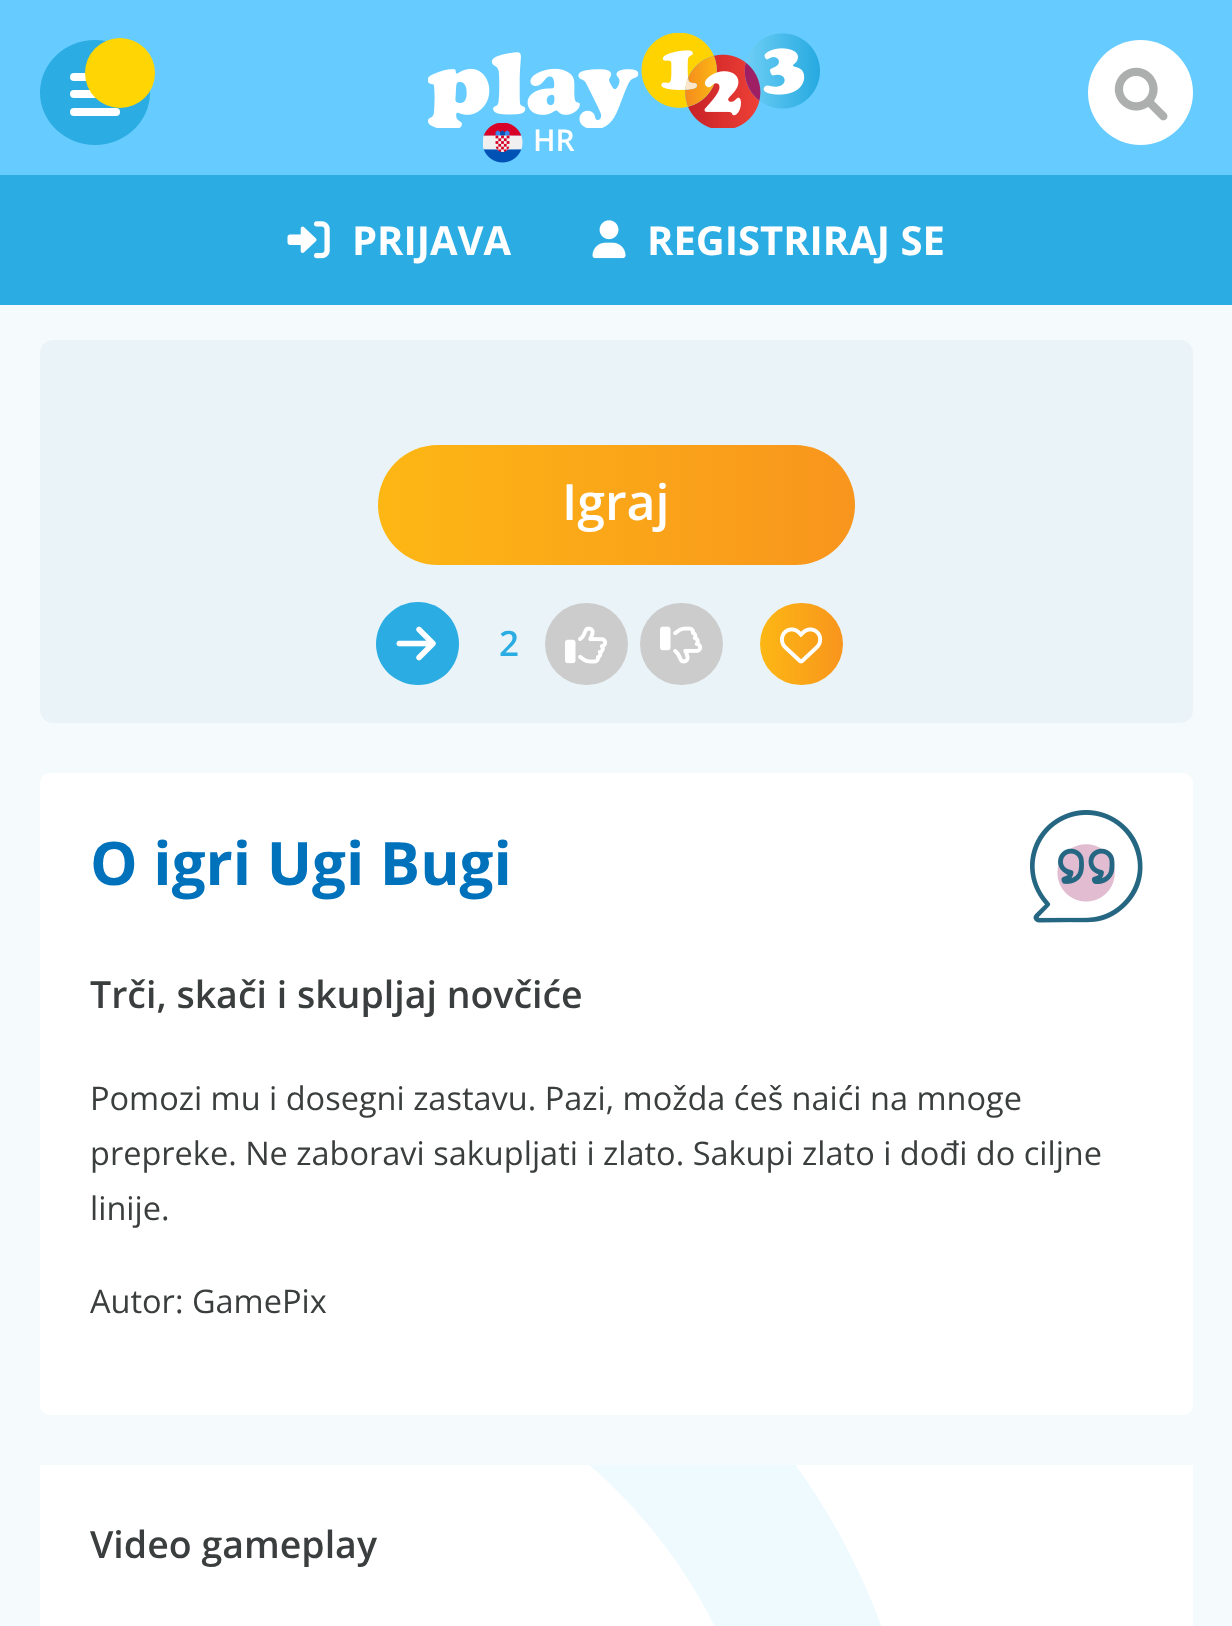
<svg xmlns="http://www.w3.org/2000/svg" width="1232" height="1626">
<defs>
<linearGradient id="g1" gradientUnits="userSpaceOnUse" x1="378" y1="505" x2="855" y2="505"><stop offset="0" stop-color="#fdb714"/><stop offset="1" stop-color="#f8951d"/></linearGradient>
<linearGradient id="g2" gradientUnits="userSpaceOnUse" x1="760" y1="644" x2="843" y2="644"><stop offset="0" stop-color="#fdb714"/><stop offset="1" stop-color="#f8951d"/></linearGradient>
</defs>
<rect width="100%" height="100%" fill="#f5fafc"/>
<rect width="1232" height="175" fill="#6cf"/>
<ellipse cx="95" cy="92.5" rx="55" ry="52.5" fill="#2bace2"/>
<rect x="70" y="73" width="50" height="8" rx="4" fill="#fff"/>
<rect x="70" y="90" width="50" height="8" rx="4" fill="#fff"/>
<circle cx="120" cy="73" r="35" fill="#ffd503"/>
<rect x="70" y="108" width="50" height="8" rx="4" fill="#fff"/>
<image x="428" y="33" width="392" height="95" href="media/1.png"/>
<image x="483" y="123" width="40" height="40" href="media/2.png"/>
<text x="533" y="151" style="font-family:Open Sans;font-size:30px;font-weight:600;fill:#fff">HR</text>
<circle cx="1140.5" cy="92.5" r="52.5" fill="#fff"/>
<image x="1114" y="67" width="54" height="54" href="media/3.png"/>
<rect y="175" width="1232" height="130" fill="#2bace2"/>
<image x="287" y="221" width="43" height="38" href="media/4.png"/>
<text x="352" y="255" style="font-family:Open Sans;font-size:40px;font-weight:bold;fill:#fff">PRIJAVA</text>
<image x="592" y="220" width="34" height="39" href="media/5.png"/>
<text x="647" y="255" style="font-family:Open Sans;font-size:40px;font-weight:bold;fill:#fff">REGISTRIRAJ SE</text>
<rect x="40" y="340" width="1153" height="383" rx="13" fill="#eaf4f8"/>
<rect x="378" y="445" width="477" height="120" rx="60" fill="url(#g1)"/>
<text x="562" y="520" style="font-family:Open Sans;font-size:50px;font-weight:600;fill:#fff">Igraj</text>
<path d="M459 644c0 23-18 41-41 41c-23 0-42-18-42-41c0-23 19-42 42-42c23 0 41 19 41 42z" fill="#2bace2"/>
<image x="396" y="626" width="40" height="35" href="media/6.png"/>
<text x="499" y="656" style="font-family:Open Sans;font-size:35px;font-weight:600;fill:#2bace2">2</text>
<rect x="545" y="603" width="83" height="82" rx="41" fill="#cdcccc"/>
<image x="565" y="626" width="43" height="38" href="media/7.png"/>
<rect x="640" y="603" width="83" height="82" rx="41" fill="#cdcccc"/>
<image x="660" y="626" width="43" height="38" href="media/8.png"/>
<rect x="760" y="603" width="83" height="82" rx="41" fill="url(#g2)"/>
<image x="780" y="627" width="43" height="37" href="media/9.png"/>
<rect x="40" y="773" width="1153" height="642" rx="10" fill="#fff"/>
<image x="1030" y="810" width="113" height="113" href="media/10.png"/>
<text x="90" y="885" style="font-family:Open Sans;font-size:60px;font-weight:bold;fill:#0072bc">O igri Ugi Bugi</text>
<text x="90" y="1008" style="font-family:Open Sans;font-size:37.5px;font-weight:600;fill:#3b3e3e">Trči, skači i skupljaj novčiće</text>
<text x="90" y="1110" style="font-family:Open Sans;font-size:32.5px;fill:#3b3e3e">Pomozi mu i dosegni zastavu. Pazi, možda ćeš naići na mnoge</text>
<text x="90" y="1165" style="font-family:Open Sans;font-size:32.5px;fill:#3b3e3e">prepreke. Ne zaboravi sakupljati i zlato. Sakupi zlato i dođi do ciljne</text>
<text x="90" y="1220" style="font-family:Open Sans;font-size:32.5px;fill:#3b3e3e">linije.</text>
<text x="90" y="1313" style="font-family:Open Sans;font-size:32.5px;fill:#3b3e3e">Autor: GamePix</text>
<rect x="40" y="1465" width="1153" height="161" fill="#fff"/>
<image x="590" y="1465" width="291" height="161" href="media/11.png"/>
<text x="90" y="1558" style="font-family:Open Sans;font-size:37.5px;font-weight:600;fill:#3b3e3e">Video gameplay</text>
</svg>
